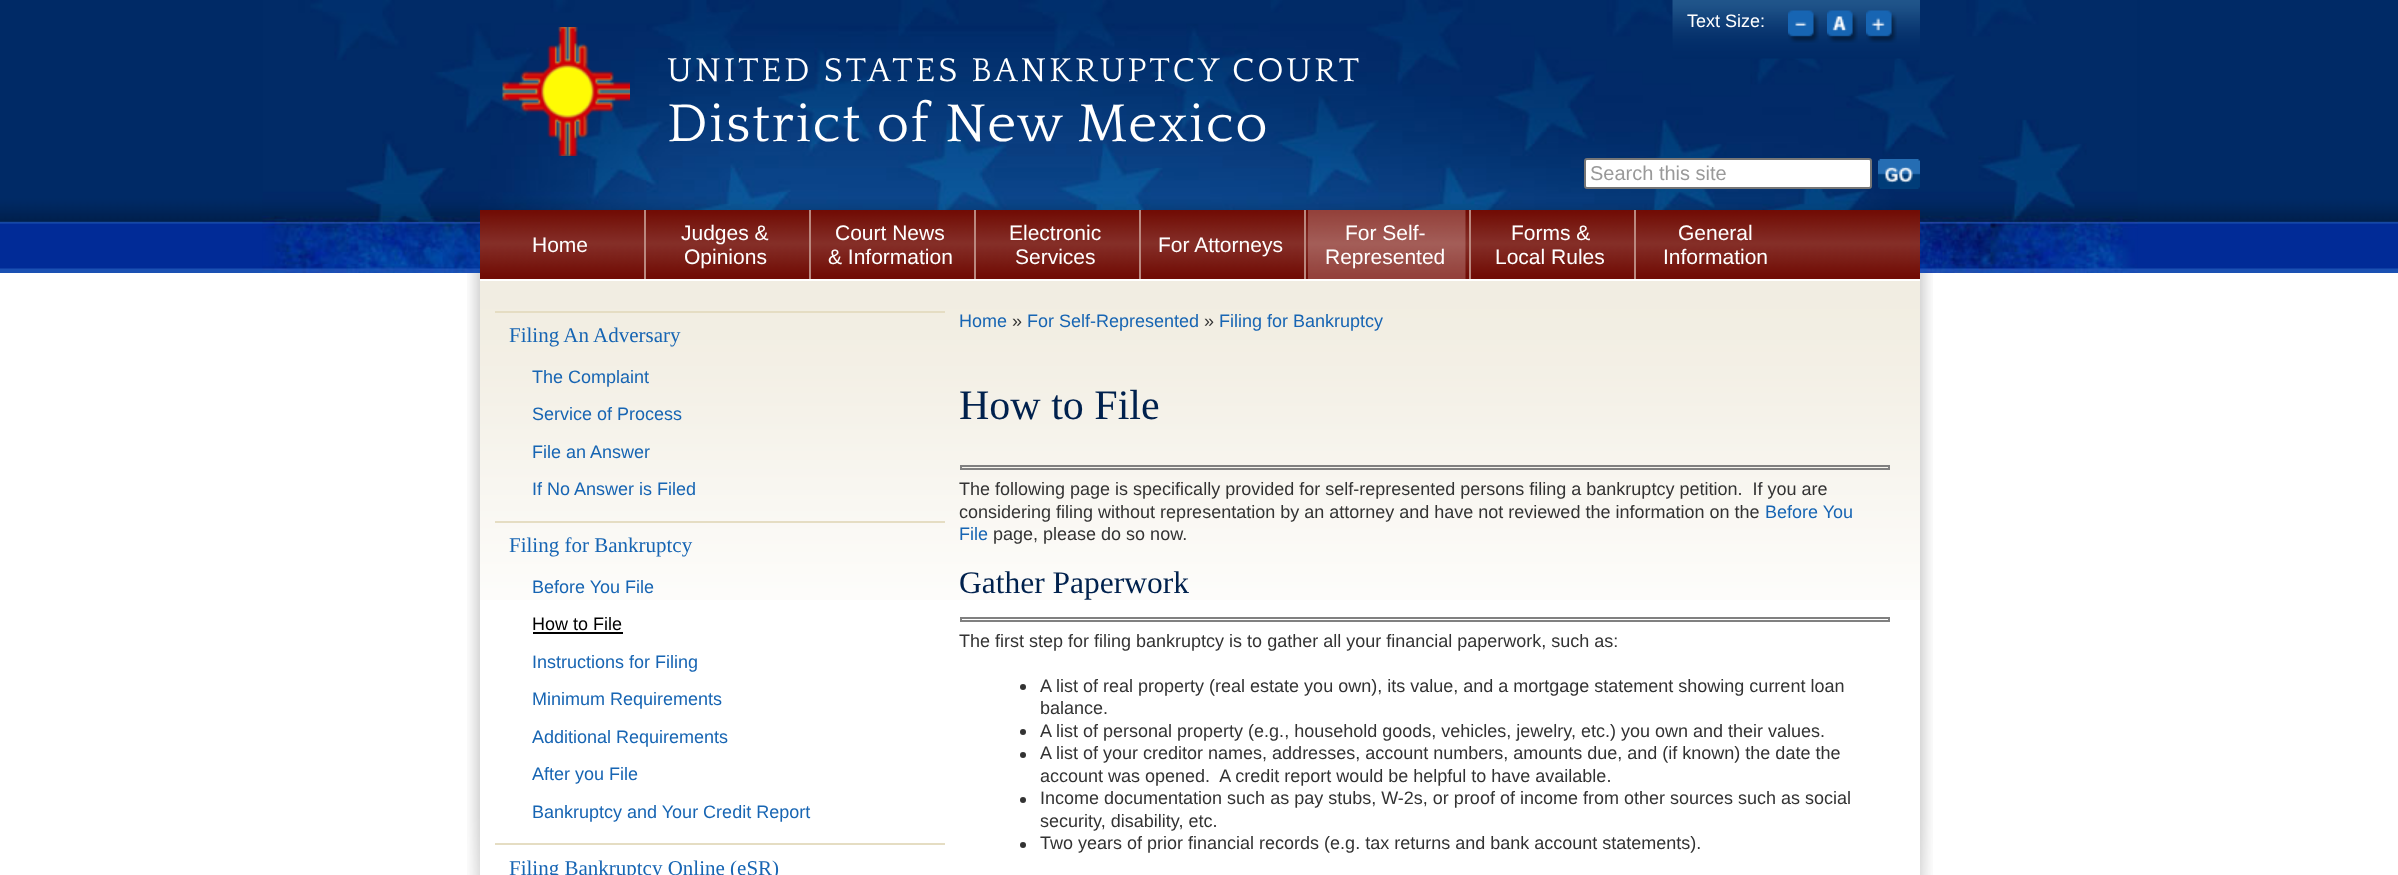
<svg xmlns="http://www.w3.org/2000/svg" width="2398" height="875">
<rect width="100%" height="100%" fill="#fff"/>
<image x="467" y="273" width="1466" height="602" href="media/1.png"/>
<image x="0" y="0" width="2398" height="273" href="media/2.png"/>
<image x="262" y="0" width="1876" height="273" href="media/3.png"/>
<image x="1672" y="0" width="248" height="59" href="media/4.png"/>
<text x="1687" y="27" style="font-family:Liberation Sans;font-size:18px;fill:#fff">Text Size:</text>
<image x="1788" y="10" width="31" height="33" href="media/5.png"/>
<image x="1827" y="10" width="31" height="33" href="media/6.png"/>
<image x="1866" y="10" width="31" height="33" href="media/7.png"/>
<rect x="1585" y="159" width="286" height="29" rx="2" fill="#fff" stroke="#767676" stroke-width="2"/>
<text x="1590" y="180" style="font-family:Liberation Sans;font-size:20px;fill:#999">Search this site</text>
<image x="1878" y="159" width="42" height="30" href="media/8.png"/>
<image x="480" y="210" width="1440" height="69" href="media/9.png"/>
<rect x="480" y="279" width="1440" height="2" fill="#fff"/>
<rect x="644" y="210" width="2" height="69" fill="#ba887f"/>
<text x="532" y="252" style="font-family:Liberation Sans;font-size:21px;fill:#fff">Home</text>
<rect x="809" y="210" width="2" height="69" fill="#ba887f"/>
<text x="681" y="240" style="font-family:Liberation Sans;font-size:21px;fill:#fff">Judges &amp;</text>
<text x="684" y="264" style="font-family:Liberation Sans;font-size:21px;fill:#fff">Opinions</text>
<rect x="974" y="210" width="2" height="69" fill="#ba887f"/>
<text x="835" y="240" style="font-family:Liberation Sans;font-size:21px;fill:#fff">Court News</text>
<text x="828" y="264" style="font-family:Liberation Sans;font-size:21px;fill:#fff">&amp; Information</text>
<rect x="1139" y="210" width="2" height="69" fill="#ba887f"/>
<text x="1009" y="240" style="font-family:Liberation Sans;font-size:21px;fill:#fff">Electronic</text>
<text x="1015" y="264" style="font-family:Liberation Sans;font-size:21px;fill:#fff">Services</text>
<rect x="1304" y="210" width="2" height="69" fill="#ba887f"/>
<text x="1158" y="252" style="font-family:Liberation Sans;font-size:21px;fill:#fff">For Attorneys</text>
<rect x="1469" y="210" width="2" height="69" fill="#ba887f"/>
<image x="1308" y="210" width="158" height="69" href="media/10.png"/>
<text x="1345" y="240" style="font-family:Liberation Sans;font-size:21px;fill:#fff">For Self-</text>
<text x="1325" y="264" style="font-family:Liberation Sans;font-size:21px;fill:#fff">Represented</text>
<rect x="1634" y="210" width="2" height="69" fill="#ba887f"/>
<text x="1511" y="240" style="font-family:Liberation Sans;font-size:21px;fill:#fff">Forms &amp;</text>
<text x="1495" y="264" style="font-family:Liberation Sans;font-size:21px;fill:#fff">Local Rules</text>
<text x="1678" y="240" style="font-family:Liberation Sans;font-size:21px;fill:#fff">General</text>
<text x="1663" y="264" style="font-family:Liberation Sans;font-size:21px;fill:#fff">Information</text>
<image x="502" y="27" width="128" height="129" href="media/11.png"/>
<text x="667" y="81" style="font-family:Quattrocento;font-size:34.5px;letter-spacing:3px;fill:#fff">UNITED STATES BANKRUPTCY COURT</text>
<text x="667" y="141" style="font-family:Quattrocento;font-size:55.5px;letter-spacing:1.5px;fill:#fff">District of New Mexico</text>
<rect x="480" y="600" width="1440" height="275" fill="#fff"/>
<image x="480" y="281" width="1440" height="319" href="media/12.png"/>
<rect x="495" y="311" width="450" height="2" fill="#e5ddc3"/>
<text x="509" y="342" style="font-family:Liberation Serif;font-size:21px;fill:#1765b3">Filing An Adversary</text>
<text x="532" y="383" style="font-family:Liberation Sans;font-size:18px;fill:#1765b3">The Complaint</text>
<text x="532" y="420" style="font-family:Liberation Sans;font-size:18px;fill:#1765b3">Service of Process</text>
<text x="532" y="458" style="font-family:Liberation Sans;font-size:18px;fill:#1765b3">File an Answer</text>
<text x="532" y="495" style="font-family:Liberation Sans;font-size:18px;fill:#1765b3">If No Answer is Filed</text>
<rect x="495" y="521" width="450" height="2" fill="#e5ddc3"/>
<text x="509" y="552" style="font-family:Liberation Serif;font-size:21px;fill:#1765b3">Filing for Bankruptcy</text>
<text x="532" y="593" style="font-family:Liberation Sans;font-size:18px;fill:#1765b3">Before You File</text>
<text x="532" y="630" style="font-family:Liberation Sans;font-size:18px;fill:#000">How to File</text>
<rect x="533" y="632" width="90" height="2" fill="#000"/>
<text x="532" y="668" style="font-family:Liberation Sans;font-size:18px;fill:#1765b3">Instructions for Filing</text>
<text x="532" y="705" style="font-family:Liberation Sans;font-size:18px;fill:#1765b3">Minimum Requirements</text>
<text x="532" y="743" style="font-family:Liberation Sans;font-size:18px;fill:#1765b3">Additional Requirements</text>
<text x="532" y="780" style="font-family:Liberation Sans;font-size:18px;fill:#1765b3">After you File</text>
<text x="532" y="818" style="font-family:Liberation Sans;font-size:18px;fill:#1765b3">Bankruptcy and Your Credit Report</text>
<rect x="495" y="843" width="450" height="2" fill="#e5ddc3"/>
<text x="509" y="875" style="font-family:Liberation Serif;font-size:21px;fill:#1765b3">Filing Bankruptcy Online (eSR)</text>
<text x="959" y="327" style="font-family:Liberation Sans;font-size:18px;fill:#1765b3">Home</text>
<text x="1012" y="327" style="font-family:Liberation Sans;font-size:18px;fill:#333">»</text>
<text x="1027" y="327" style="font-family:Liberation Sans;font-size:18px;fill:#1765b3">For Self-Represented</text>
<text x="1204" y="327" style="font-family:Liberation Sans;font-size:18px;fill:#333">»</text>
<text x="1219" y="327" style="font-family:Liberation Sans;font-size:18px;fill:#1765b3">Filing for Bankruptcy</text>
<text x="959" y="419" style="font-family:Liberation Serif;font-size:42px;fill:#00214d">How to File</text>
<rect x="961" y="466" width="928" height="3" fill="none" stroke="#808080" stroke-width="2"/>
<text x="959" y="495" style="font-family:Liberation Sans;font-size:18px;fill:#333" xml:space="preserve">The following page is specifically provided for self-represented persons filing a bankruptcy petition.  If you are</text>
<text x="959" y="518" style="font-family:Liberation Sans;font-size:18px;fill:#333">considering filing without representation by an attorney and have not reviewed the information on the</text>
<text x="1765" y="518" style="font-family:Liberation Sans;font-size:18px;fill:#1765b3">Before You</text>
<text x="959" y="540" style="font-family:Liberation Sans;font-size:18px;fill:#1765b3">File</text>
<text x="993" y="540" style="font-family:Liberation Sans;font-size:18px;fill:#333">page, please do so now.</text>
<text x="959" y="593" style="font-family:Liberation Serif;font-size:31.5px;fill:#00214d">Gather Paperwork</text>
<rect x="961" y="618" width="928" height="3" fill="none" stroke="#808080" stroke-width="2"/>
<text x="959" y="647" style="font-family:Liberation Sans;font-size:18px;fill:#333">The first step for filing bankruptcy is to gather all your financial paperwork, such as:</text>
<circle cx="1023" cy="687" r="3" fill="#333"/>
<text x="1040" y="692" style="font-family:Liberation Sans;font-size:18px;fill:#333">A list of real property (real estate you own), its value, and a mortgage statement showing current loan</text>
<text x="1040" y="714" style="font-family:Liberation Sans;font-size:18px;fill:#333">balance.</text>
<circle cx="1023" cy="732" r="3" fill="#333"/>
<text x="1040" y="737" style="font-family:Liberation Sans;font-size:18px;fill:#333">A list of personal property (e.g., household goods, vehicles, jewelry, etc.) you own and their values.</text>
<circle cx="1023" cy="755" r="3" fill="#333"/>
<text x="1040" y="759" style="font-family:Liberation Sans;font-size:18px;fill:#333">A list of your creditor names, addresses, account numbers, amounts due, and (if known) the date the</text>
<text x="1040" y="782" style="font-family:Liberation Sans;font-size:18px;fill:#333" xml:space="preserve">account was opened.  A credit report would be helpful to have available.</text>
<circle cx="1023" cy="800" r="3" fill="#333"/>
<text x="1040" y="804" style="font-family:Liberation Sans;font-size:18px;fill:#333">Income documentation such as pay stubs, W-2s, or proof of income from other sources such as social</text>
<text x="1040" y="827" style="font-family:Liberation Sans;font-size:18px;fill:#333">security, disability, etc.</text>
<circle cx="1023" cy="845" r="3" fill="#333"/>
<text x="1040" y="849" style="font-family:Liberation Sans;font-size:18px;fill:#333">Two years of prior financial records (e.g. tax returns and bank account statements).</text>
</svg>
